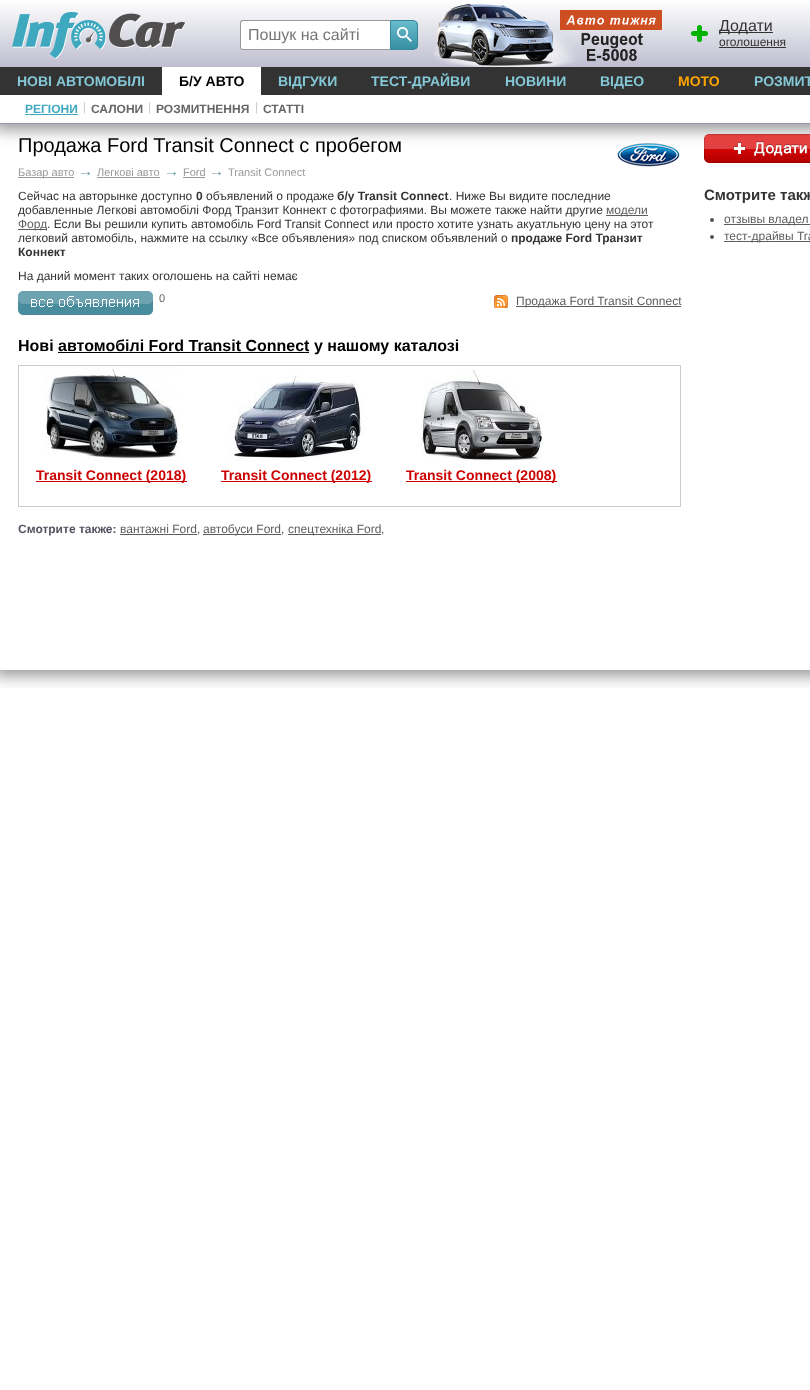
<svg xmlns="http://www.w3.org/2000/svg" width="810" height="1390">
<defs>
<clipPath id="clip1"><rect x="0" y="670" width="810" height="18"/></clipPath>
<linearGradient id="g1" gradientUnits="userSpaceOnUse" x1="502" y1="0" x2="502" y2="124"><stop offset="0" stop-color="#fff"/><stop offset="1" stop-color="#8686a8"/></linearGradient>
<clipPath id="clip2"><path d="M390 20h23c3 0 5 2 5 5v20c0 3-2 5-5 5h-23z"/></clipPath>
<linearGradient id="g2" gradientUnits="userSpaceOnUse" x1="404" y1="21" x2="404" y2="49"><stop offset="0" stop-color="#69bccd"/><stop offset="1" stop-color="#368fa3"/></linearGradient>
</defs>
<rect width="100%" height="100%" fill="#fff"/>
<g clip-path="url(#clip1)">
<rect x="-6" y="118" width="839" height="558" fill="#00000066" filter="blur(7.5px)"/>
</g>
<image x="617" y="142" width="63" height="25" href="media/4.png"/>
<image x="704" y="134" width="106" height="29" href="media/10.png"/>
<rect x="-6" y="-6" width="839" height="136" fill="#00000066" filter="blur(7.5px)"/>
<rect width="810" height="67" fill="url(#g1)"/>
<path d="M243 20h147v30h-147c-1.5 0-3-1.5-3-3v-24c0-1.5 1.5-3 3-3z" fill="#fff"/>
<path d="M243 20h147v30h-147c-2 0-3-1-3-3v-24c0-2 1-3 3-3zm0 1h147v28h-147c-1 0-2-1-2-2v-24c0-1 1-2 2-2z" fill="#999" fill-rule="evenodd"/>
<text x="248" y="40" style="font-family:Liberation Sans;font-size:16px;fill:#757575">Пошук на сайті</text>
<g clip-path="url(#clip2)">
<rect x="391" y="21" width="27" height="28" fill="url(#g2)"/>
</g>
<path d="M390.5 20.5h22.5c2.5 0 4.5 2 4.5 4.5v20c0 2.5-2 4.5-4.5 4.5h-22.5z" fill="none" stroke="#34889a"/>
<image x="397" y="27" width="15" height="15" href="media/1.png"/>
<image x="12" y="12" width="174" height="47" href="media/2.png"/>
<image x="434" y="4" width="228" height="63" href="media/3.png"/>
<rect x="691" y="31" width="17" height="5" rx="2.5" fill="#00b300"/>
<rect x="697" y="25" width="5" height="17" rx="2.5" fill="#00b300"/>
<rect x="719" y="32" width="54" height="1" fill="#333"/>
<text x="719" y="31" style="font-family:Liberation Sans;font-size:16px;fill:#333">Додати</text>
<text x="719" y="46" style="font-family:Liberation Sans;font-size:12px;fill:#333">оголошення</text>
<rect x="719" y="47" width="67" height="1" fill="#333"/>
<rect y="67" width="810" height="28" fill="#333"/>
<rect y="123" width="810" height="1" fill="#9696a9"/>
<text x="17" y="86" style="font-family:Liberation Sans;font-size:14px;font-weight:bold;fill:#84c8d7">НОВІ АВТОМОБІЛІ</text>
<rect x="162" y="67" width="99" height="28" fill="#fff"/>
<text x="179" y="86" style="font-family:Liberation Sans;font-size:14px;font-weight:bold;fill:#000">Б/У АВТО</text>
<text x="278" y="86" style="font-family:Liberation Sans;font-size:14px;font-weight:bold;fill:#84c8d7">ВІДГУКИ</text>
<text x="371" y="86" style="font-family:Liberation Sans;font-size:14px;font-weight:bold;fill:#84c8d7">ТЕСТ-ДРАЙВИ</text>
<text x="505" y="86" style="font-family:Liberation Sans;font-size:14px;font-weight:bold;fill:#84c8d7">НОВИНИ</text>
<text x="600" y="86" style="font-family:Liberation Sans;font-size:14px;font-weight:bold;fill:#84c8d7">ВІДЕО</text>
<text x="678" y="86" style="font-family:Liberation Sans;font-size:14px;font-weight:bold;fill:#ffa500">МОТО</text>
<text x="754" y="86" style="font-family:Liberation Sans;font-size:14px;font-weight:bold;fill:#84c8d7">РОЗМИТ</text>
<rect y="95" width="810" height="28" fill="#fff"/>
<text x="25" y="113" style="font-family:Liberation Sans;font-size:12px;font-weight:bold;fill:#3da8be">РЕГІОНИ</text>
<rect x="25" y="114" width="53" height="1" fill="#3da8be"/>
<text x="83" y="111" style="font-family:Liberation Sans;font-size:12px;fill:#ccc">|</text>
<text x="91" y="113" style="font-family:Liberation Sans;font-size:12px;font-weight:bold;fill:#666">САЛОНИ</text>
<text x="148" y="111" style="font-family:Liberation Sans;font-size:12px;fill:#ccc">|</text>
<text x="156" y="113" style="font-family:Liberation Sans;font-size:12px;font-weight:bold;fill:#666">РОЗМИТНЕННЯ</text>
<text x="255" y="111" style="font-family:Liberation Sans;font-size:12px;fill:#ccc">|</text>
<text x="263" y="113" style="font-family:Liberation Sans;font-size:12px;font-weight:bold;fill:#666">СТАТТІ</text>
<text x="18" y="152" style="font-family:Liberation Sans;font-size:20px;fill:#000">Продажа Ford Transit Connect с пробегом</text>
<rect x="18" y="177" width="56" height="1" fill="#999"/>
<text x="18" y="176" style="font-family:Liberation Sans;font-size:11px;fill:#999">Базар авто</text>
<text x="78" y="176" style="font-family:Liberation Sans;font-size:15px;fill:#6695a4">→</text>
<text x="97" y="176" style="font-family:Liberation Sans;font-size:11px;fill:#999">Легкові авто</text>
<rect x="97" y="177" width="63" height="1" fill="#999"/>
<text x="164" y="176" style="font-family:Liberation Sans;font-size:15px;fill:#6695a4">→</text>
<text x="183" y="176" style="font-family:Liberation Sans;font-size:11px;fill:#999">Ford</text>
<rect x="183" y="177" width="22" height="1" fill="#999"/>
<text x="209" y="176" style="font-family:Liberation Sans;font-size:15px;fill:#6695a4">→</text>
<text x="228" y="176" style="font-family:Liberation Sans;font-size:11px;fill:#999">Transit Connect</text>
<text x="18" y="200" style="font-family:Liberation Sans;font-size:12px;fill:#333">Сейчас на авторынке доступно</text>
<text x="196" y="200" style="font-family:Liberation Sans;font-size:12px;font-weight:bold;fill:#333">0</text>
<text x="206" y="200" style="font-family:Liberation Sans;font-size:12px;fill:#333">объявлений о продаже</text>
<text x="337" y="200" style="font-family:Liberation Sans;font-size:12px;font-weight:bold;fill:#333">б/у Transit Connect</text>
<text x="449" y="200" style="font-family:Liberation Sans;font-size:12px;fill:#333">. Ниже Вы видите последние</text>
<text x="18" y="214" style="font-family:Liberation Sans;font-size:12px;fill:#333">добавленные Легкові автомобілі Форд Транзит Коннект с фотографиями. Вы можете также найти другие</text>
<rect x="606" y="215" width="42" height="1" fill="#5f5c5c"/>
<text x="606" y="214" style="font-family:Liberation Sans;font-size:12px;fill:#5f5c5c">модели</text>
<rect x="18" y="229" width="29" height="1" fill="#5f5c5c"/>
<text x="18" y="228" style="font-family:Liberation Sans;font-size:12px;fill:#5f5c5c">Форд</text>
<text x="47" y="228" style="font-family:Liberation Sans;font-size:12px;fill:#333">. Если Вы решили купить автомобіль Ford Transit Connect или просто хотите узнать акуатльную цену на этот</text>
<text x="18" y="242" style="font-family:Liberation Sans;font-size:12px;fill:#333">легковий автомобіль, нажмите на ссылку «Все объявления» под списком объявлений о</text>
<text x="511" y="242" style="font-family:Liberation Sans;font-size:12px;font-weight:bold;fill:#333">продаже Ford Транзит</text>
<text x="18" y="256" style="font-family:Liberation Sans;font-size:12px;font-weight:bold;fill:#333">Коннект</text>
<text x="18" y="280" style="font-family:Liberation Sans;font-size:12px;fill:#333">На даний момент таких оголошень на сайті немає</text>
<image x="18" y="291" width="135" height="24" href="media/5.png"/>
<text x="159" y="302" style="font-family:Liberation Sans;font-size:11px;fill:#666">0</text>
<image x="494" y="295" width="14" height="13" href="media/6.png"/>
<rect x="516" y="306" width="165" height="1" fill="#5f5c5c"/>
<text x="516" y="305" style="font-family:Liberation Sans;font-size:12px;fill:#5f5c5c">Продажа Ford Transit Connect</text>
<text x="18" y="351" style="font-family:Liberation Sans;font-size:16px;font-weight:bold;fill:#000">Нові автомобілі Ford Transit Connect у нашому каталозі</text>
<rect x="58" y="352" width="251" height="1" fill="#000"/>
<rect x="18.5" y="365.5" width="662" height="141" fill="none" stroke="#ccc"/>
<image x="45" y="366" width="136" height="95" href="media/7.png"/>
<rect x="36" y="481" width="151" height="1" fill="#c00"/>
<text x="36" y="480" style="font-family:Liberation Sans;font-size:14px;font-weight:bold;fill:#c00">Transit Connect (2018)</text>
<image x="230" y="374" width="136" height="88" href="media/8.png"/>
<rect x="221" y="481" width="151" height="1" fill="#c00"/>
<text x="221" y="480" style="font-family:Liberation Sans;font-size:14px;font-weight:bold;fill:#c00">Transit Connect (2012)</text>
<image x="419" y="369" width="124" height="93" href="media/9.png"/>
<rect x="406" y="481" width="151" height="1" fill="#c00"/>
<text x="406" y="480" style="font-family:Liberation Sans;font-size:14px;font-weight:bold;fill:#c00">Transit Connect (2008)</text>
<text x="18" y="533" style="font-family:Liberation Sans;font-size:12px;font-weight:bold;fill:#535362">Смотрите также:</text>
<text x="120" y="533" style="font-family:Liberation Sans;font-size:12px;fill:#5f5c5c">вантажні Ford</text>
<text x="197" y="533" style="font-family:Liberation Sans;font-size:12px;fill:#535362">,</text>
<rect x="120" y="534" width="77" height="1" fill="#5f5c5c"/>
<rect x="203" y="534" width="78" height="1" fill="#5f5c5c"/>
<text x="203" y="533" style="font-family:Liberation Sans;font-size:12px;fill:#5f5c5c">автобуси Ford</text>
<text x="281" y="533" style="font-family:Liberation Sans;font-size:12px;fill:#535362">,</text>
<rect x="288" y="534" width="93" height="1" fill="#5f5c5c"/>
<text x="288" y="533" style="font-family:Liberation Sans;font-size:12px;fill:#5f5c5c">спецтехніка Ford</text>
<text x="381" y="533" style="font-family:Liberation Sans;font-size:12px;fill:#535362">,</text>
<text x="704" y="200" style="font-family:Liberation Sans;font-size:15px;font-weight:bold;fill:#333">Смотрите такж</text>
<circle cx="712" cy="220" r="2" fill="#535362"/>
<rect x="724" y="224" width="86" height="1" fill="#5f5c5c"/>
<text x="724" y="223" style="font-family:Liberation Sans;font-size:12px;fill:#5f5c5c">отзывы владел</text>
<circle cx="712" cy="237" r="2" fill="#535362"/>
<rect x="724" y="241" width="86" height="1" fill="#5f5c5c"/>
<text x="724" y="240" style="font-family:Liberation Sans;font-size:12px;fill:#5f5c5c">тест-драйвы Tra</text>
</svg>
